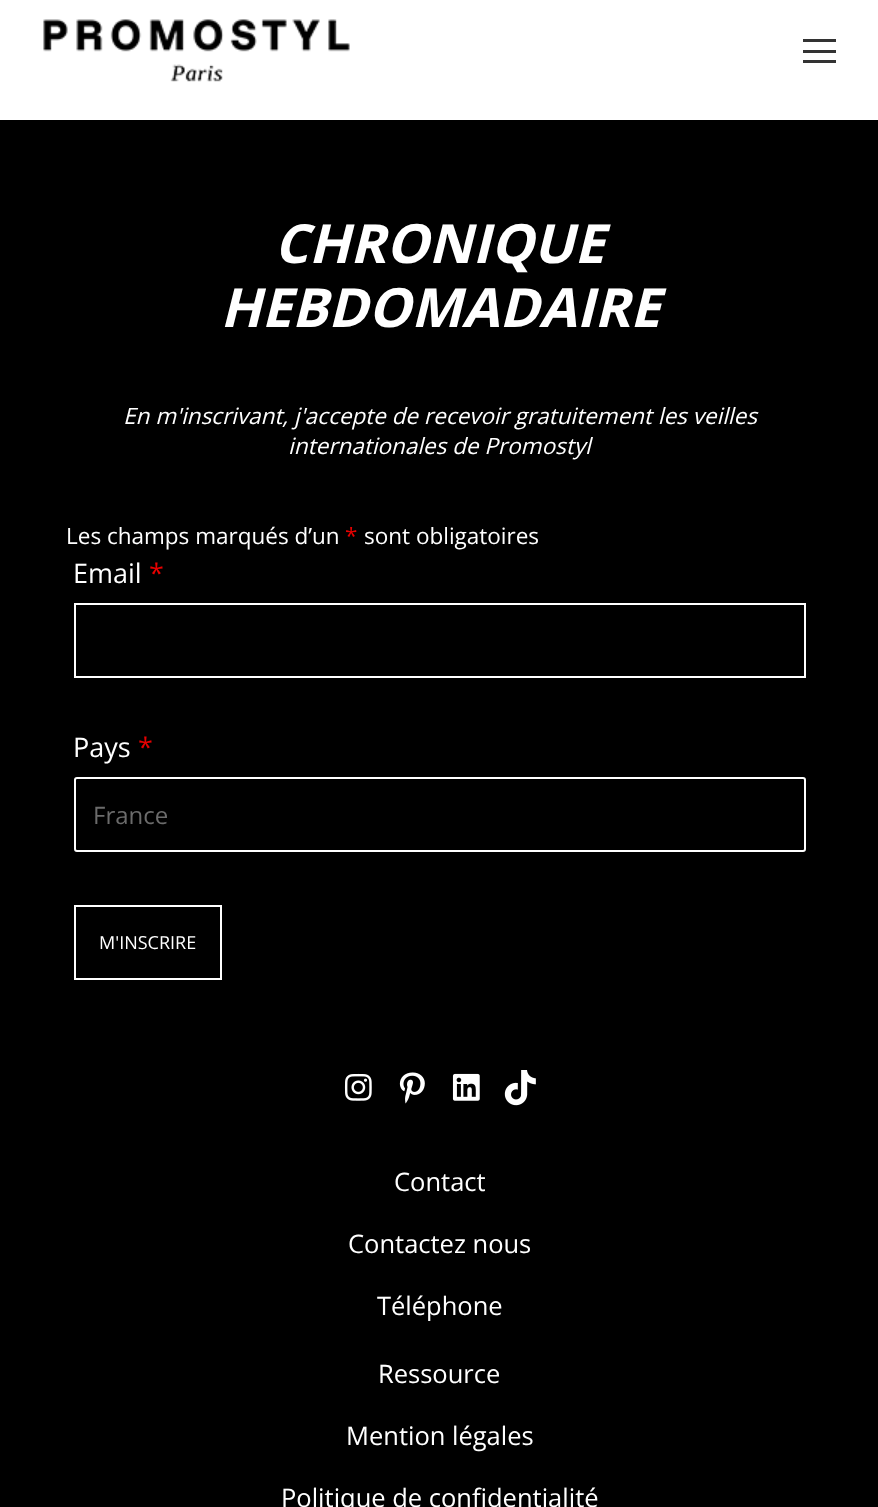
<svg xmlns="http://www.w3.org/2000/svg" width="878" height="1507">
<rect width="100%" height="100%" fill="#000"/>
<rect width="878" height="120" fill="#fff"/>
<image x="43" y="19" width="307" height="63" href="media/1.png"/>
<rect x="803" y="39" width="33" height="3" fill="#333"/>
<rect x="803" y="50" width="33" height="3" fill="#333"/>
<rect x="803" y="60" width="33" height="3" fill="#333"/>
<text x="274" y="263" style="font-family:Open Sans;font-size:54px;font-weight:bold;font-style:italic;fill:#fff">CHRONIQUE</text>
<text x="220" y="327" style="font-family:Open Sans;font-size:54px;font-weight:bold;font-style:italic;fill:#fff">HEBDOMADAIRE</text>
<text x="123" y="424" style="font-family:Open Sans;font-size:22.5px;font-style:italic;fill:#fff">En m'inscrivant, j'accepte de recevoir gratuitement les veilles</text>
<text x="288" y="454" style="font-family:Open Sans;font-size:22.5px;font-style:italic;fill:#fff">internationales de Promostyl</text>
<text x="66" y="544" style="font-family:Open Sans;font-size:22.5px;fill:#fff">Les champs marqués d’un</text>
<text x="345" y="544" style="font-family:Open Sans;font-size:22.5px;fill:#e80000">*</text>
<text x="364" y="544" style="font-family:Open Sans;font-size:22.5px;fill:#fff">sont obligatoires</text>
<text x="73" y="583" style="font-family:Open Sans;font-size:27px;fill:#fff">Email</text>
<text x="149" y="583" style="font-family:Open Sans;font-size:27px;fill:#e80000">*</text>
<rect x="75" y="604" width="730" height="73" fill="none" stroke="#fff" stroke-width="2"/>
<text x="73" y="757" style="font-family:Open Sans;font-size:27px;fill:#fff">Pays</text>
<text x="138" y="757" style="font-family:Open Sans;font-size:27px;fill:#e80000">*</text>
<rect x="75" y="778" width="730" height="73" rx="2" fill="none" stroke="#fff" stroke-width="2"/>
<text x="93" y="824" style="font-family:Open Sans;font-size:24px;fill:#6b6b6b">France</text>
<rect x="75" y="906" width="146" height="73" fill="none" stroke="#fff" stroke-width="2"/>
<text x="99" y="949" style="font-family:Open Sans;font-size:18px;fill:#fff">M'INSCRIRE</text>
<image x="344" y="1073" width="28" height="28" href="media/2.png"/>
<image x="399" y="1072" width="26" height="32" href="media/3.png"/>
<image x="452" y="1073" width="28" height="28" href="media/4.png"/>
<image x="504" y="1070" width="32" height="36" href="media/5.png"/>
<text x="394" y="1191" style="font-family:Open Sans;font-size:25.5px;fill:#fff">Contact</text>
<text x="348" y="1253" style="font-family:Open Sans;font-size:25.5px;fill:#fff">Contactez nous</text>
<text x="377" y="1315" style="font-family:Open Sans;font-size:25.5px;fill:#fff">Téléphone</text>
<text x="378" y="1383" style="font-family:Open Sans;font-size:25.5px;fill:#fff">Ressource</text>
<text x="346" y="1445" style="font-family:Open Sans;font-size:25.5px;fill:#fff">Mention légales</text>
<text x="281" y="1507" style="font-family:Open Sans;font-size:25.5px;fill:#fff">Politique de confidentialité</text>
</svg>
